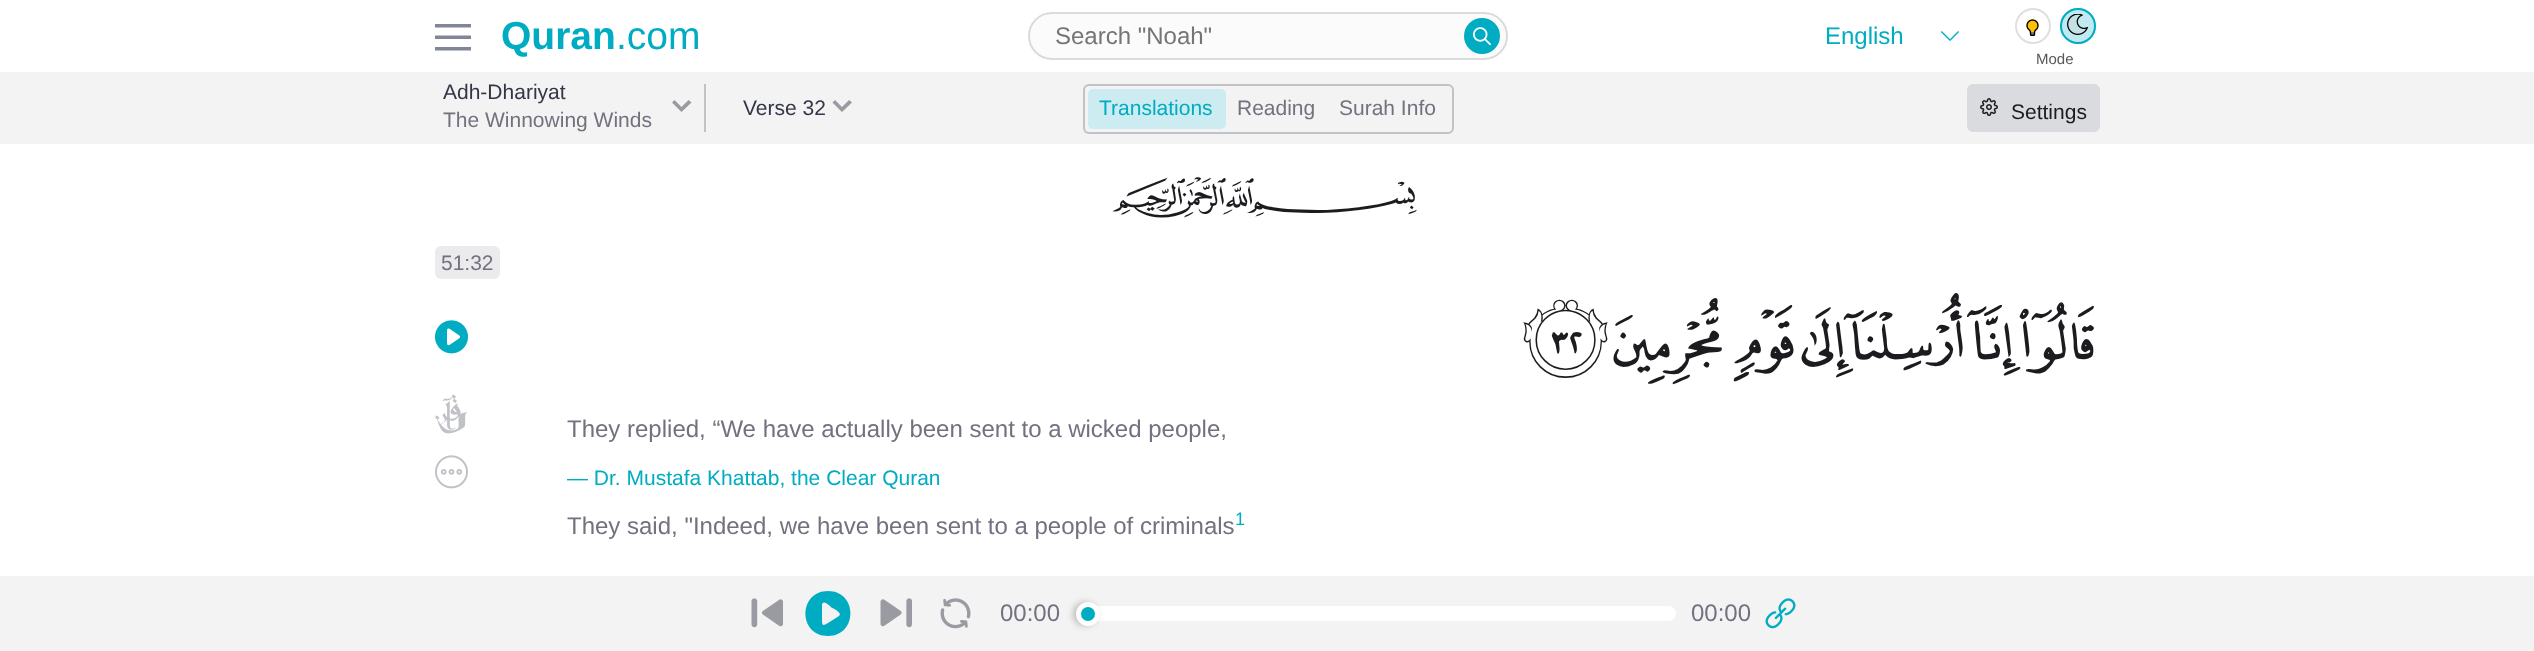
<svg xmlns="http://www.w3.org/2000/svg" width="2534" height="651">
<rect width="100%" height="100%" fill="#fff"/>
<path d="M471 47v3.5h-36v-3.5zm0-11.5v3.5h-36v-3.5zm0-11.5v3.5h-36v-3.5z" fill="#808696" fill-rule="evenodd"/>
<text x="501" y="49" style="font-family:Liberation Sans;font-size:39px;font-weight:bold;fill:#00acc2">Quran</text>
<text x="616" y="49" style="font-family:Liberation Sans;font-size:39px;fill:#00acc2">.com</text>
<rect x="1029" y="13" width="478" height="46" rx="23" fill="#fbfbfb" stroke="#dadbde" stroke-width="2"/>
<text x="1055" y="44" style="font-family:Liberation Sans;font-size:24px;fill:#757575">Search "Noah"</text>
<circle cx="1482" cy="36" r="18" fill="#00acc2"/>
<image x="1473" y="27" width="18" height="19" href="media/1.png"/>
<text x="1825" y="44" style="font-family:Liberation Sans;font-size:24px;fill:#00acc2">English</text>
<image x="1941" y="31" width="18" height="10" href="media/2.png"/>
<image x="2026" y="19" width="13" height="17" href="media/3.png"/>
<circle cx="2033" cy="26" r="17" fill="none" stroke="#dfdfe0" stroke-width="2"/>
<circle cx="2078" cy="26" r="18" fill="#c0eaf0"/>
<image x="2067" y="14" width="21" height="21" href="media/4.png"/>
<circle cx="2078" cy="26" r="17" fill="none" stroke="#00acc2" stroke-width="2"/>
<text x="2036" y="64" style="font-family:Liberation Sans;font-size:15px;fill:#595959">Mode</text>
<rect y="72" width="2534" height="72" fill="#f3f3f4"/>
<text x="443" y="99" style="font-family:Liberation Sans;font-size:21px;fill:#333647">Adh-Dhariyat</text>
<text x="443" y="127" style="font-family:Liberation Sans;font-size:21px;fill:#71727e">The Winnowing Winds</text>
<path d="M688.5 100l3 2.5l-10 9.5l-9.5-9.5l2.5-2.5l7 7z" fill="#999aa2"/>
<rect x="704" y="84" width="2" height="48" fill="#c1c2c7"/>
<text x="743" y="115" style="font-family:Liberation Sans;font-size:21px;fill:#333647">Verse 32</text>
<path d="M849 100l3 2.5l-10 9.5l-9.5-9.5l2.5-2.5l7 7z" fill="#999aa2"/>
<rect x="1084" y="85" width="369" height="48" rx="5" fill="none" stroke="#c1c2c7" stroke-width="2"/>
<rect x="1088" y="89" width="138" height="40" rx="5" fill="#cdecf1"/>
<text x="1099" y="115" style="font-family:Liberation Sans;font-size:21px;fill:#00acc2">Translations</text>
<text x="1237" y="115" style="font-family:Liberation Sans;font-size:21px;fill:#71727e">Reading</text>
<text x="1339" y="115" style="font-family:Liberation Sans;font-size:21px;fill:#71727e">Surah Info</text>
<rect x="1967" y="84" width="133" height="48" rx="6" fill="#dadbde"/>
<image x="1980" y="98" width="18" height="18" href="media/5.png"/>
<text x="2011" y="119" style="font-family:Liberation Sans;font-size:21px;fill:#1c1c20">Settings</text>
<text x="1075" y="225" style="font-family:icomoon;font-size:60px;fill:#1c1c20">﷽</text>
<rect x="435" y="246" width="65" height="33" rx="6" fill="#ebebed"/>
<text x="441" y="270" style="font-family:Liberation Sans;font-size:21px;fill:#71727e">51:32</text>
<image x="435" y="320" width="33" height="34" href="media/6.png"/>
<image x="435" y="394" width="32" height="40" href="media/7.png"/>
<image x="435" y="455" width="33" height="34" href="media/8.png"/>
<text x="1608" y="359" style="font-family:'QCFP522';font-size:68px;direction:rtl;fill:#1c1c20">ﭞ</text>
<text x="1722" y="359" style="font-family:'QCFP522';font-size:68px;direction:rtl;fill:#1c1c20">ﭝ</text>
<text x="1794" y="359" style="font-family:'QCFP522';font-size:68px;direction:rtl;fill:#1c1c20">ﭜ</text>
<text x="1963" y="359" style="font-family:'QCFP522';font-size:68px;direction:rtl;fill:#1c1c20">ﭚ</text>
<text x="1843" y="359" style="font-family:'QCFP522';font-size:68px;direction:rtl;fill:#1c1c20">ﭛ</text>
<text x="2100" y="359" style="font-family:'QCFP522';font-size:68px;direction:rtl;fill:#1c1c20">ﭘ</text>
<text x="2011" y="359" style="font-family:'QCFP522';font-size:68px;direction:rtl;fill:#1c1c20">ﭙ</text>
<text x="567" y="437" style="font-family:Liberation Sans;font-size:24px;fill:#71727e">They replied, “We have actually been sent to a wicked people,</text>
<text x="567" y="485" style="font-family:Liberation Sans;font-size:21px;fill:#00acc2">— Dr. Mustafa Khattab, the Clear Quran</text>
<text x="567" y="534" style="font-family:Liberation Sans;font-size:24px;fill:#71727e">They said, "Indeed, we have been sent to a people of criminals</text>
<text x="1235" y="525" style="font-family:Liberation Sans;font-size:18px;fill:#00acc2">1</text>
<rect y="576" width="2534" height="75" fill="#f3f3f4"/>
<image x="751" y="598" width="32" height="30" href="media/9.png"/>
<path d="M828 591c-30 0-30 45 0 45c30 0 30-45 0-45zm11 25l-11 7c-5 3-6 3-6-3v-16l1-1c2-2 8 4 9 5c1 0 11 5 7 8z" fill="#00acc2"/>
<image x="880" y="598" width="32" height="30" href="media/10.png"/>
<image x="940" y="598" width="31" height="31" href="media/11.png"/>
<text x="1000" y="621" style="font-family:Liberation Sans;font-size:24px;fill:#71727e">00:00</text>
<rect x="1076" y="606" width="600" height="15" rx="7.5" fill="#fff"/>
<rect x="1073" y="602" width="24" height="24" rx="12" fill="#83838380" filter="blur(3px)"/>
<circle cx="1088" cy="614" r="9.5" fill="#00acc2" stroke="#fff" stroke-width="5"/>
<text x="1691" y="621" style="font-family:Liberation Sans;font-size:24px;fill:#71727e">00:00</text>
<image x="1765" y="598" width="31" height="31" href="media/12.png"/>
</svg>
